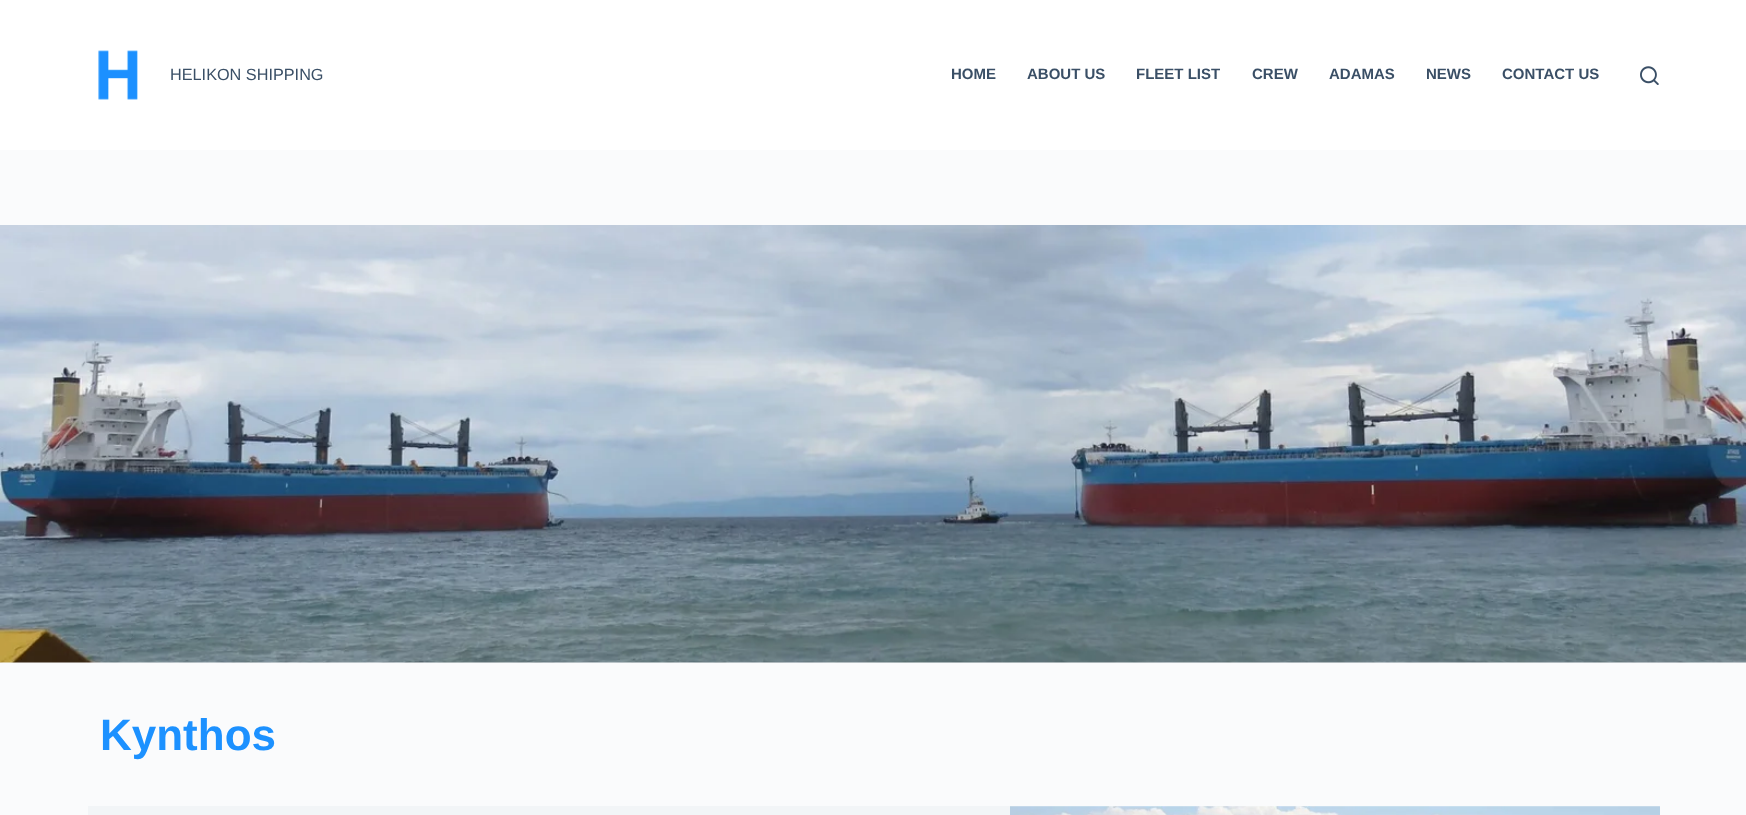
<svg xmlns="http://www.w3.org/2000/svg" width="1746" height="815">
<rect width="100%" height="100%" fill="#fafbfc"/>
<rect width="1746" height="150" fill="#fff"/>
<image x="98" y="50" width="40" height="50" href="media/1.png"/>
<text x="170" y="80" style="font-family:Liberation Sans;font-size:16.25px;fill:#3a4f66">HELIKON SHIPPING</text>
<text x="951" y="79" style="font-family:Liberation Sans;font-size:15px;font-weight:bold;fill:#3a4f66">HOME</text>
<text x="1027" y="79" style="font-family:Liberation Sans;font-size:15px;font-weight:bold;fill:#3a4f66">ABOUT US</text>
<text x="1136" y="79" style="font-family:Liberation Sans;font-size:15px;font-weight:bold;fill:#3a4f66">FLEET LIST</text>
<text x="1252" y="79" style="font-family:Liberation Sans;font-size:15px;font-weight:bold;fill:#3a4f66">CREW</text>
<text x="1329" y="79" style="font-family:Liberation Sans;font-size:15px;font-weight:bold;fill:#3a4f66">ADAMAS</text>
<text x="1426" y="79" style="font-family:Liberation Sans;font-size:15px;font-weight:bold;fill:#3a4f66">NEWS</text>
<text x="1502" y="79" style="font-family:Liberation Sans;font-size:15px;font-weight:bold;fill:#3a4f66">CONTACT US</text>
<image x="1640" y="66" width="19" height="19" href="media/2.png"/>
<image x="0" y="225" width="1746" height="438" href="media/3.png"/>
<text x="100" y="750" style="font-family:Liberation Sans;font-size:44px;font-weight:bold;fill:#1c91ff">Kynthos</text>
<rect x="88" y="806" width="1571" height="9" fill="#f2f5f7"/>
<image x="1010" y="806" width="650" height="9" href="media/4.png"/>
</svg>
